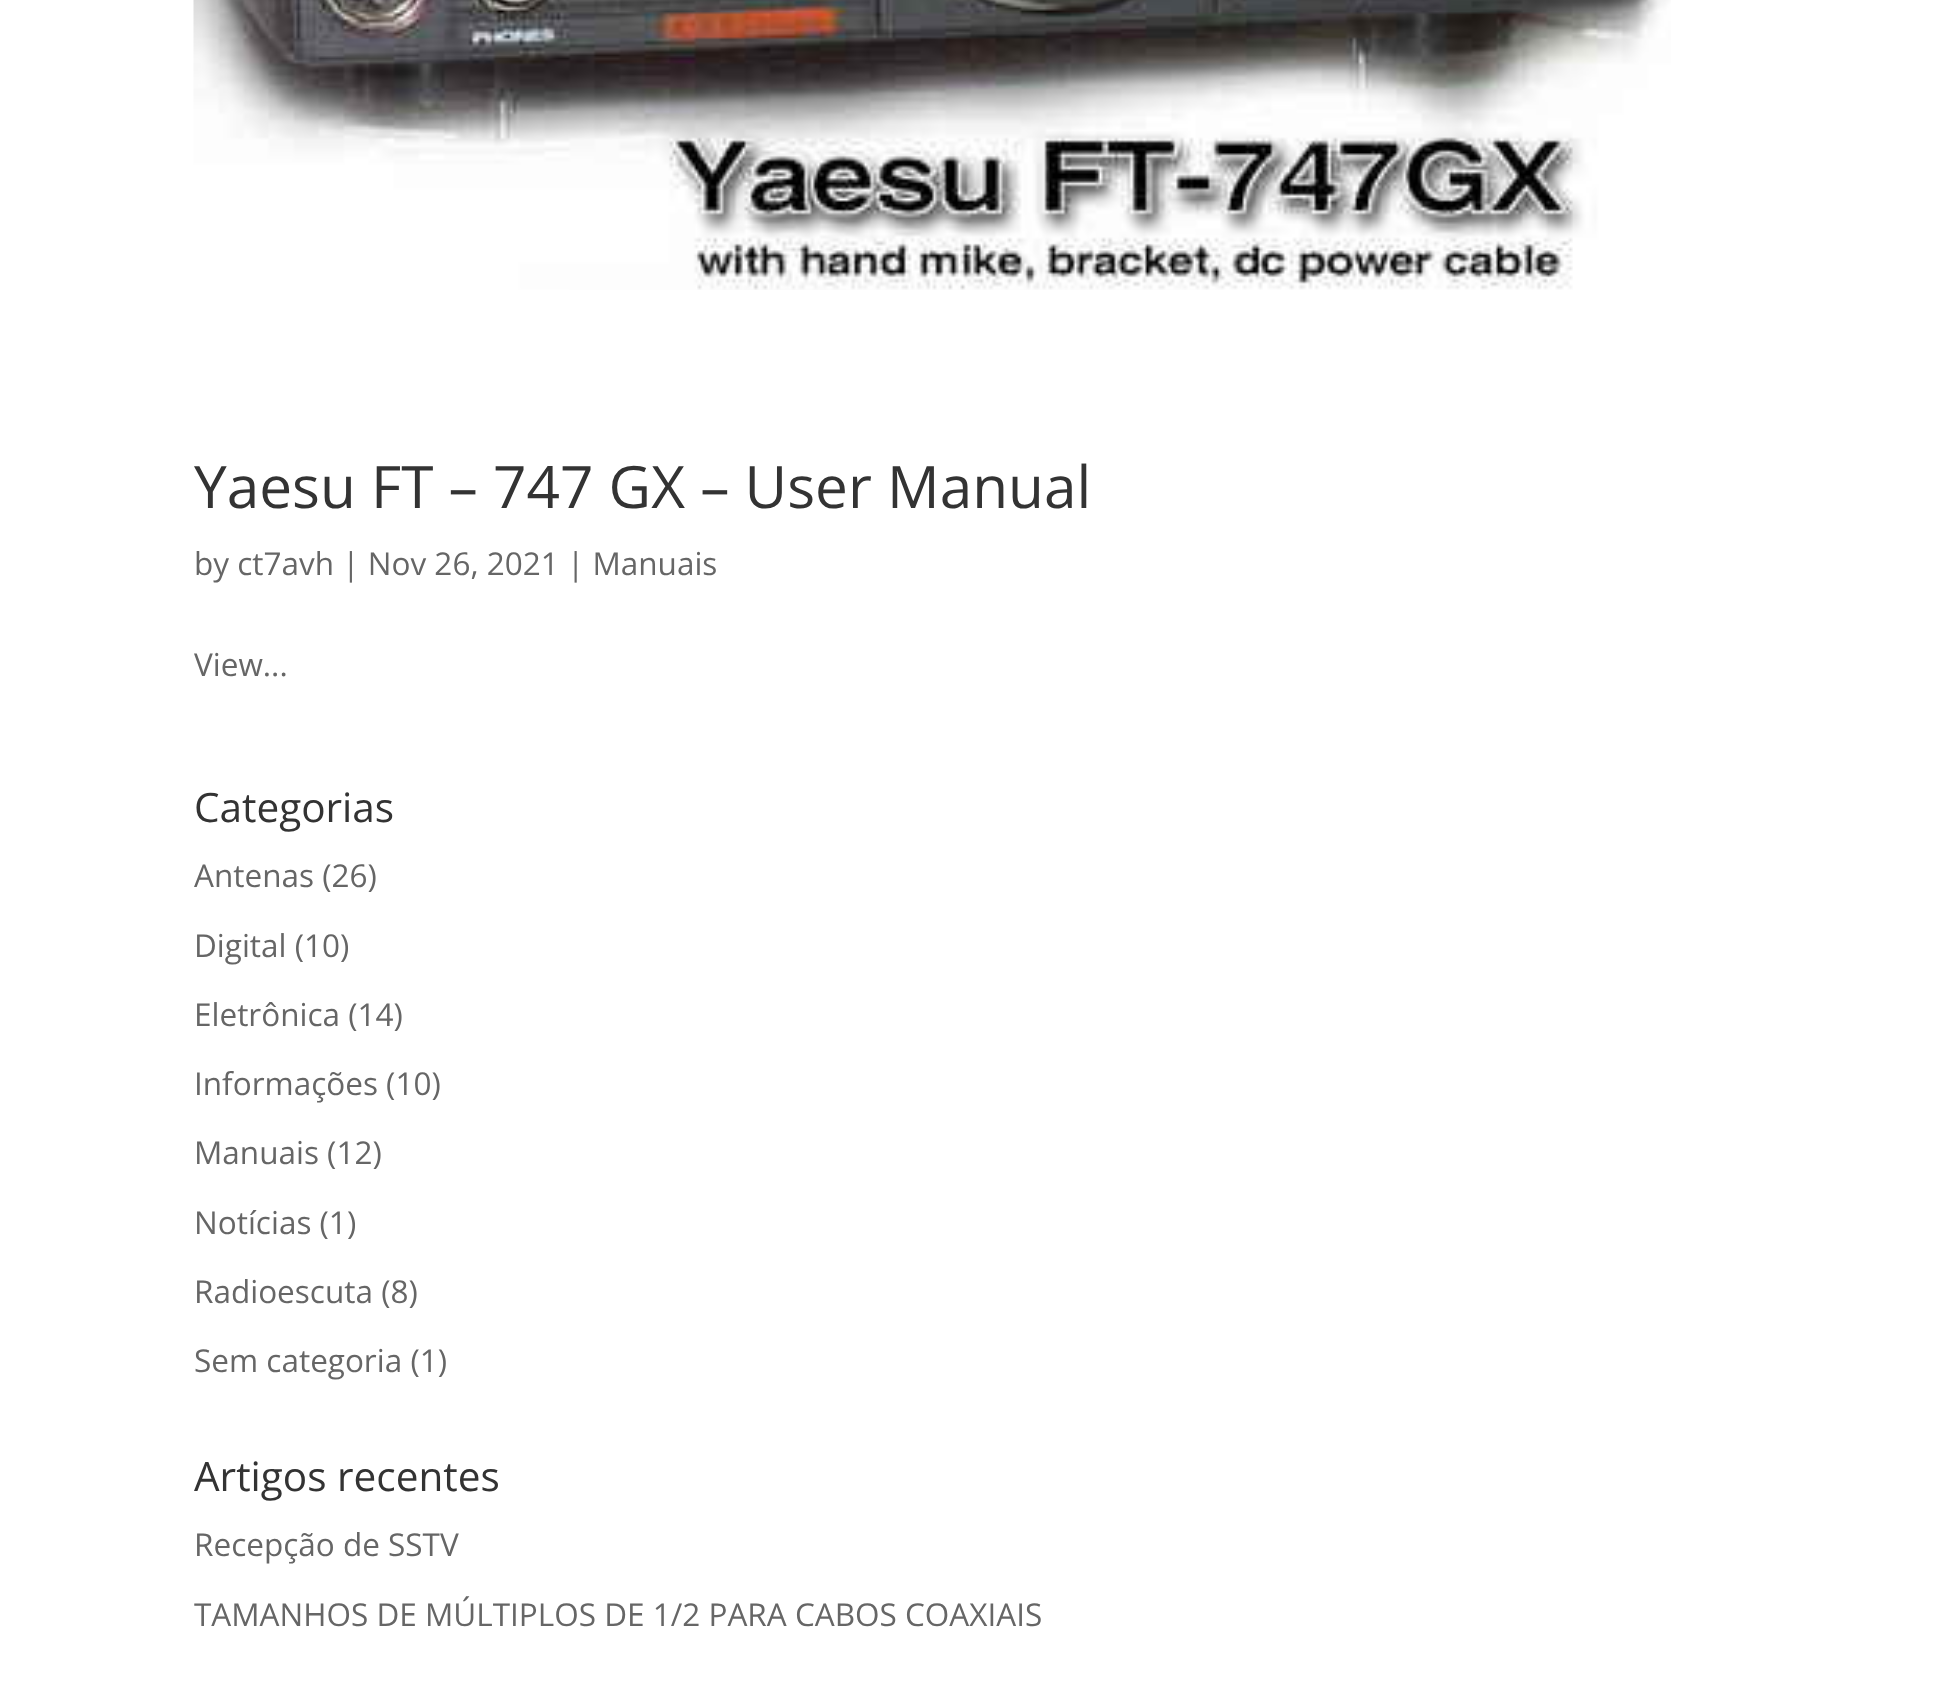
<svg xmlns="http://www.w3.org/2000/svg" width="1944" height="1681">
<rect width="100%" height="100%" fill="#fff"/>
<image x="193" y="0" width="1478" height="290" href="media/1.png"/>
<text x="194" y="508" style="font-family:Open Sans;font-size:58.5px;fill:#333">Yaesu FT – 747 GX – User Manual</text>
<text x="194" y="575" style="font-family:Open Sans;font-size:31.5px;fill:#666">by ct7avh | Nov 26, 2021 | Manuais</text>
<text x="194" y="676" style="font-family:Open Sans;font-size:31.5px;fill:#666">View...</text>
<text x="194" y="822" style="font-family:Open Sans;font-size:40.5px;fill:#333">Categorias</text>
<text x="194" y="887" style="font-family:Open Sans;font-size:31.5px;fill:#666">Antenas (26)</text>
<text x="194" y="957" style="font-family:Open Sans;font-size:31.5px;fill:#666">Digital (10)</text>
<text x="194" y="1026" style="font-family:Open Sans;font-size:31.5px;fill:#666">Eletrônica (14)</text>
<text x="194" y="1095" style="font-family:Open Sans;font-size:31.5px;fill:#666">Informações (10)</text>
<text x="194" y="1164" style="font-family:Open Sans;font-size:31.5px;fill:#666">Manuais (12)</text>
<text x="194" y="1234" style="font-family:Open Sans;font-size:31.5px;fill:#666">Notícias (1)</text>
<text x="194" y="1303" style="font-family:Open Sans;font-size:31.5px;fill:#666">Radioescuta (8)</text>
<text x="194" y="1372" style="font-family:Open Sans;font-size:31.5px;fill:#666">Sem categoria (1)</text>
<text x="194" y="1491" style="font-family:Open Sans;font-size:40.5px;fill:#333">Artigos recentes</text>
<text x="194" y="1556" style="font-family:Open Sans;font-size:31.5px;fill:#666">Recepção de SSTV</text>
<text x="194" y="1626" style="font-family:Open Sans;font-size:31.5px;fill:#666">TAMANHOS DE MÚLTIPLOS DE 1/2 PARA CABOS COAXIAIS</text>
</svg>
